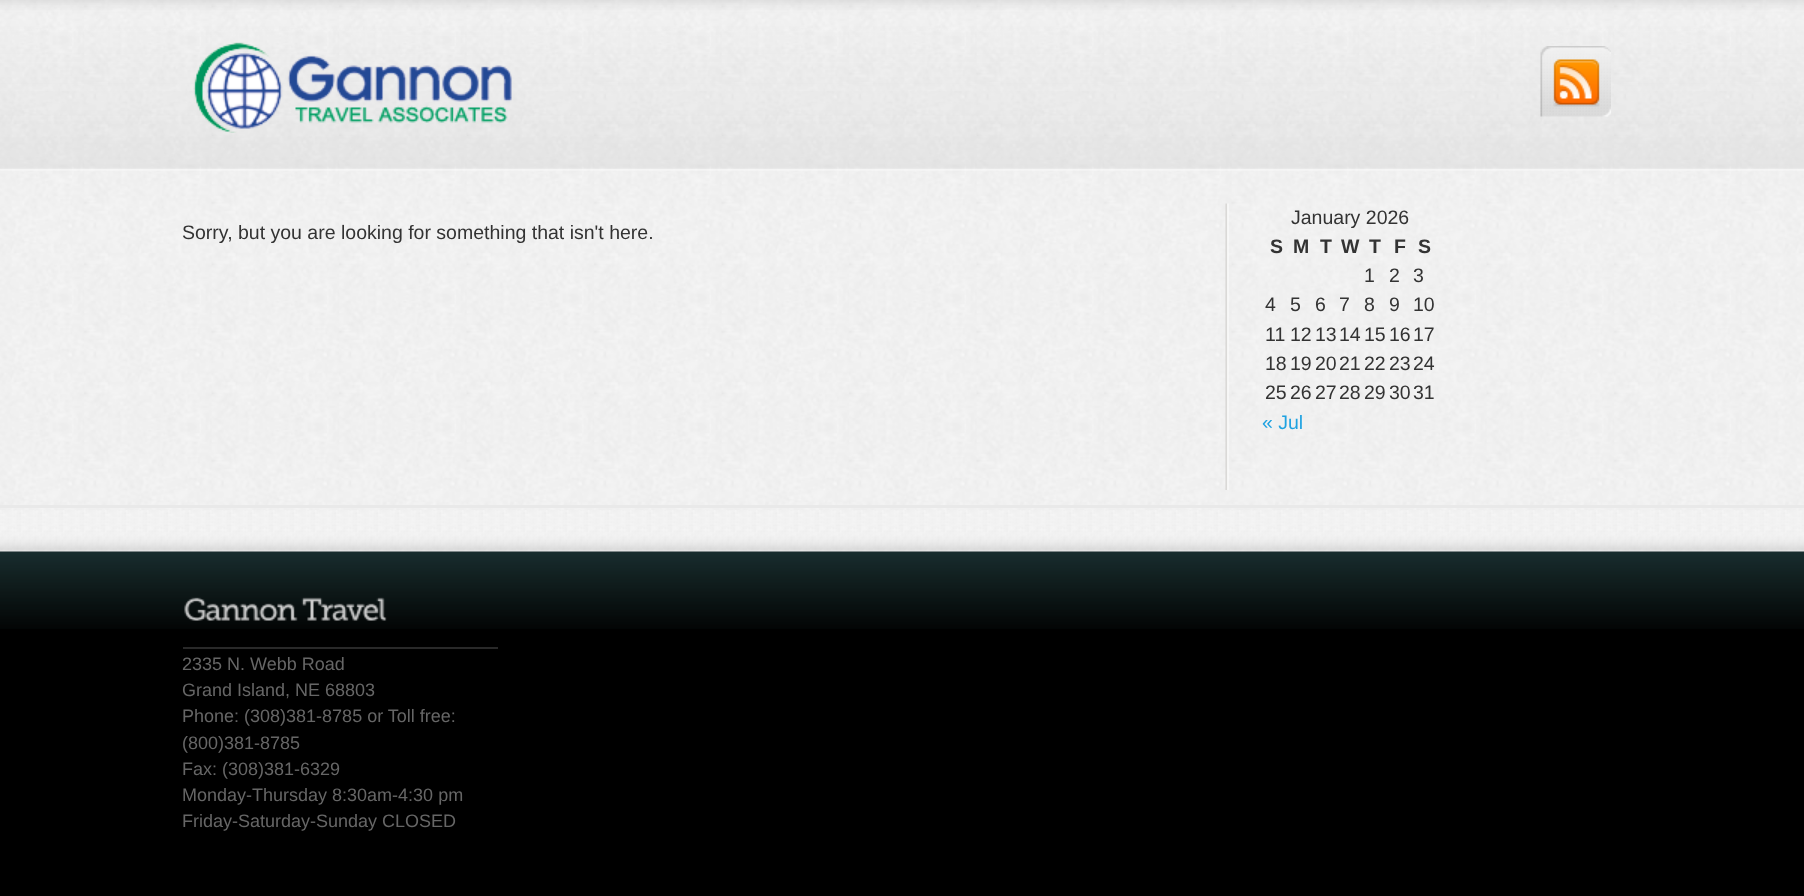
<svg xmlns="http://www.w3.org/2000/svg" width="1804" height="896">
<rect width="100%" height="100%" fill="#fff"/>
<image x="0" y="0" width="1804" height="510" href="media/1.png"/>
<image x="0" y="0" width="1804" height="171" href="media/2.png"/>
<image x="193" y="42" width="319" height="91" href="media/3.png"/>
<image x="1540" y="46" width="71" height="71" href="media/4.png"/>
<image x="1553" y="59" width="47" height="48" href="media/5.png"/>
<image x="1225" y="203" width="4" height="287" href="media/6.png"/>
<text x="182" y="239" style="font-family:Liberation Sans;font-size:19.5px;fill:#333">Sorry, but you are looking for something that isn't here.</text>
<text x="1291" y="224" style="font-family:Liberation Sans;font-size:19.5px;fill:#333">January 2026</text>
<text x="1270" y="253" style="font-family:Liberation Sans;font-size:19.5px;font-weight:bold;fill:#333">S</text>
<text x="1293" y="253" style="font-family:Liberation Sans;font-size:19.5px;font-weight:bold;fill:#333">M</text>
<text x="1320" y="253" style="font-family:Liberation Sans;font-size:19.5px;font-weight:bold;fill:#333">T</text>
<text x="1341" y="253" style="font-family:Liberation Sans;font-size:19.5px;font-weight:bold;fill:#333">W</text>
<text x="1369" y="253" style="font-family:Liberation Sans;font-size:19.5px;font-weight:bold;fill:#333">T</text>
<text x="1394" y="253" style="font-family:Liberation Sans;font-size:19.5px;font-weight:bold;fill:#333">F</text>
<text x="1418" y="253" style="font-family:Liberation Sans;font-size:19.5px;font-weight:bold;fill:#333">S</text>
<text x="1364" y="282" style="font-family:Liberation Sans;font-size:19.5px;fill:#333">1</text>
<text x="1389" y="282" style="font-family:Liberation Sans;font-size:19.5px;fill:#333">2</text>
<text x="1413" y="282" style="font-family:Liberation Sans;font-size:19.5px;fill:#333">3</text>
<text x="1265" y="311" style="font-family:Liberation Sans;font-size:19.5px;fill:#333">4</text>
<text x="1290" y="311" style="font-family:Liberation Sans;font-size:19.5px;fill:#333">5</text>
<text x="1315" y="311" style="font-family:Liberation Sans;font-size:19.5px;fill:#333">6</text>
<text x="1339" y="311" style="font-family:Liberation Sans;font-size:19.5px;fill:#333">7</text>
<text x="1364" y="311" style="font-family:Liberation Sans;font-size:19.5px;fill:#333">8</text>
<text x="1389" y="311" style="font-family:Liberation Sans;font-size:19.5px;fill:#333">9</text>
<text x="1413" y="311" style="font-family:Liberation Sans;font-size:19.5px;fill:#333">10</text>
<text x="1265" y="341" style="font-family:Liberation Sans;font-size:19.5px;fill:#333">11</text>
<text x="1290" y="341" style="font-family:Liberation Sans;font-size:19.5px;fill:#333">12</text>
<text x="1315" y="341" style="font-family:Liberation Sans;font-size:19.5px;fill:#333">13</text>
<text x="1339" y="341" style="font-family:Liberation Sans;font-size:19.5px;fill:#333">14</text>
<text x="1364" y="341" style="font-family:Liberation Sans;font-size:19.5px;fill:#333">15</text>
<text x="1389" y="341" style="font-family:Liberation Sans;font-size:19.5px;fill:#333">16</text>
<text x="1413" y="341" style="font-family:Liberation Sans;font-size:19.5px;fill:#333">17</text>
<text x="1265" y="370" style="font-family:Liberation Sans;font-size:19.5px;fill:#333">18</text>
<text x="1290" y="370" style="font-family:Liberation Sans;font-size:19.5px;fill:#333">19</text>
<text x="1315" y="370" style="font-family:Liberation Sans;font-size:19.5px;fill:#333">20</text>
<text x="1339" y="370" style="font-family:Liberation Sans;font-size:19.5px;fill:#333">21</text>
<text x="1364" y="370" style="font-family:Liberation Sans;font-size:19.5px;fill:#333">22</text>
<text x="1389" y="370" style="font-family:Liberation Sans;font-size:19.5px;fill:#333">23</text>
<text x="1413" y="370" style="font-family:Liberation Sans;font-size:19.5px;fill:#333">24</text>
<text x="1265" y="399" style="font-family:Liberation Sans;font-size:19.5px;fill:#333">25</text>
<text x="1290" y="399" style="font-family:Liberation Sans;font-size:19.5px;fill:#333">26</text>
<text x="1315" y="399" style="font-family:Liberation Sans;font-size:19.5px;fill:#333">27</text>
<text x="1339" y="399" style="font-family:Liberation Sans;font-size:19.5px;fill:#333">28</text>
<text x="1364" y="399" style="font-family:Liberation Sans;font-size:19.5px;fill:#333">29</text>
<text x="1389" y="399" style="font-family:Liberation Sans;font-size:19.5px;fill:#333">30</text>
<text x="1413" y="399" style="font-family:Liberation Sans;font-size:19.5px;fill:#333">31</text>
<text x="1262" y="429" style="font-family:Liberation Sans;font-size:19.5px;fill:#1fa2e1">« Jul</text>
<rect y="505" width="1804" height="3" fill="#e9e9e9"/>
<rect y="629" width="1804" height="267" fill="#000"/>
<image x="0" y="510" width="1804" height="119" href="media/7.png"/>
<rect x="183" y="647" width="315" height="2" fill="#292929"/>
<image x="184" y="597" width="114" height="24" href="media/8.png"/>
<image x="301" y="597" width="86" height="24" href="media/9.png"/>
<text x="182" y="670" style="font-family:Liberation Sans;font-size:18px;fill:#666">2335 N. Webb Road</text>
<text x="182" y="696" style="font-family:Liberation Sans;font-size:18px;fill:#666">Grand Island, NE 68803</text>
<text x="182" y="722" style="font-family:Liberation Sans;font-size:18px;fill:#666">Phone: (308)381-8785 or Toll free:</text>
<text x="182" y="749" style="font-family:Liberation Sans;font-size:18px;fill:#666">(800)381-8785</text>
<text x="182" y="775" style="font-family:Liberation Sans;font-size:18px;fill:#666">Fax: (308)381-6329</text>
<text x="182" y="801" style="font-family:Liberation Sans;font-size:18px;fill:#666">Monday-Thursday 8:30am-4:30 pm</text>
<text x="182" y="827" style="font-family:Liberation Sans;font-size:18px;fill:#666">Friday-Saturday-Sunday CLOSED</text>
</svg>
